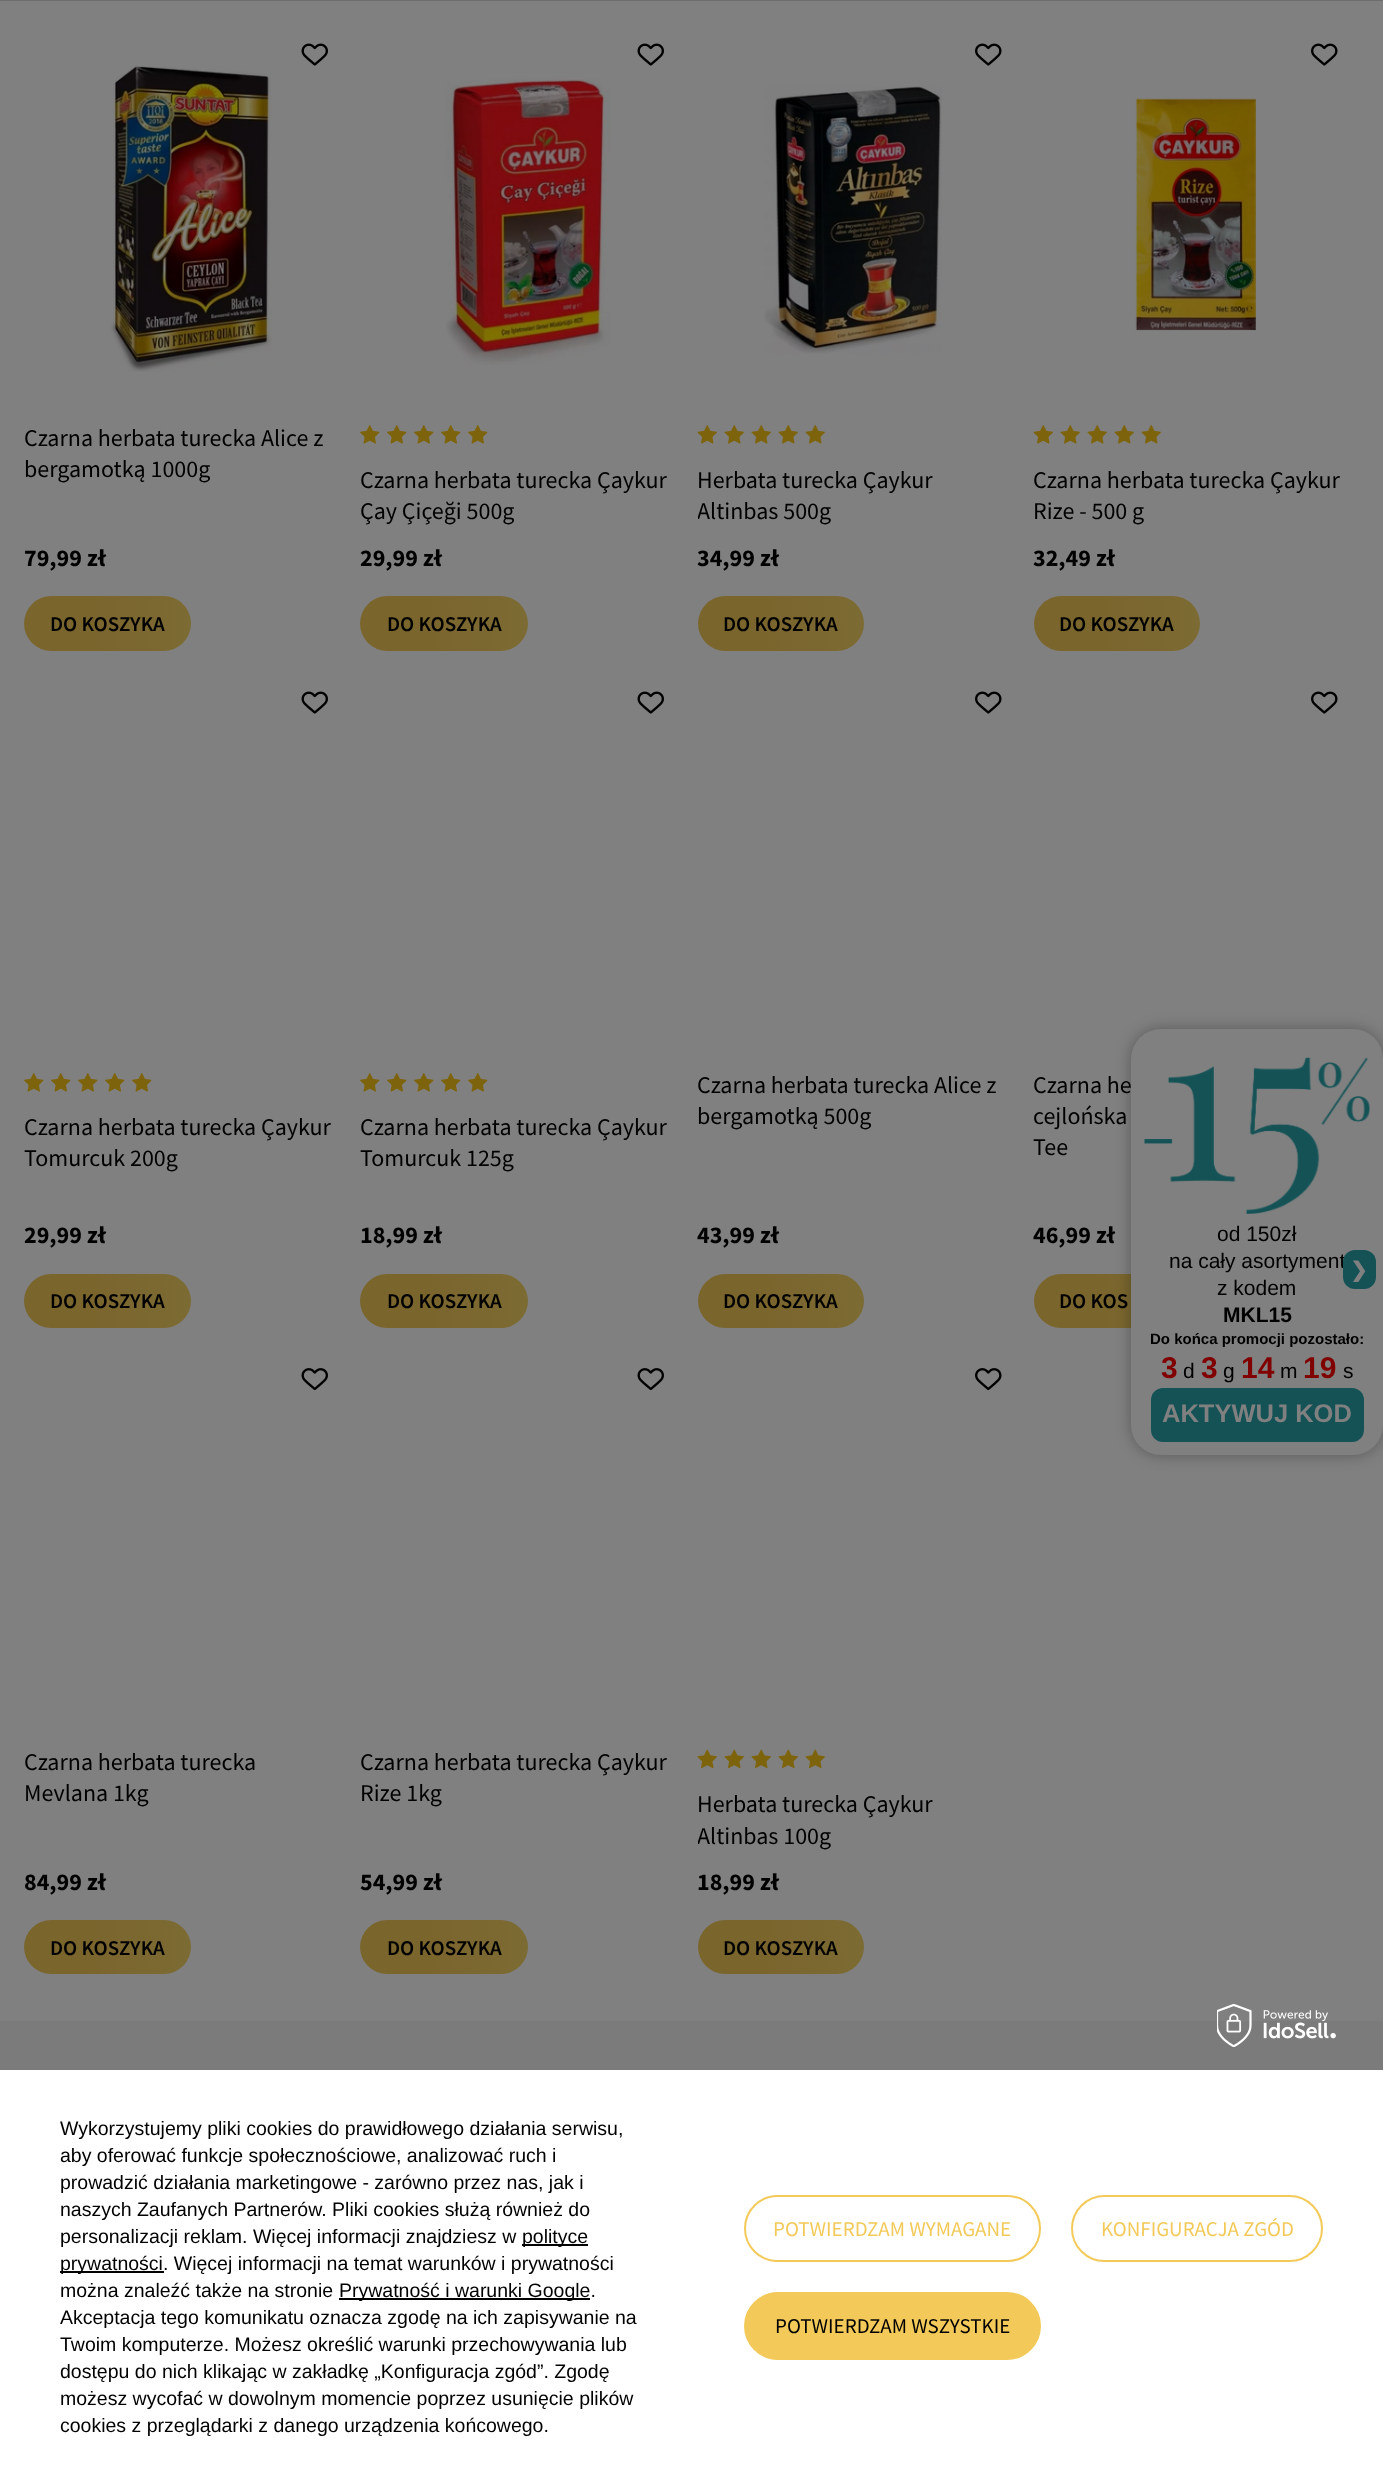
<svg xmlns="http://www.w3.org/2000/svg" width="1383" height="2483">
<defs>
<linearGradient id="g1" gradientUnits="userSpaceOnUse" x1="24" y1="624" x2="357" y2="622"><stop offset="0.21" stop-color="#7a652d"/><stop offset="1" stop-color="#80753f"/></linearGradient>
<linearGradient id="g2" gradientUnits="userSpaceOnUse" x1="360" y1="624" x2="696" y2="622"><stop offset="0.21" stop-color="#7a652d"/><stop offset="1" stop-color="#80753f"/></linearGradient>
<clipPath id="clip1"><rect x="698" y="464" width="325" height="63"/></clipPath>
<linearGradient id="g3" gradientUnits="userSpaceOnUse" x1="697" y1="624" x2="1031" y2="622"><stop offset="0.21" stop-color="#7a652d"/><stop offset="1" stop-color="#80753f"/></linearGradient>
<linearGradient id="g4" gradientUnits="userSpaceOnUse" x1="1033" y1="624" x2="1367" y2="622"><stop offset="0.21" stop-color="#7a652d"/><stop offset="1" stop-color="#80753f"/></linearGradient>
<linearGradient id="g5" gradientUnits="userSpaceOnUse" x1="24" y1="1301" x2="357" y2="1300"><stop offset="0.21" stop-color="#7a652d"/><stop offset="1" stop-color="#80753f"/></linearGradient>
<linearGradient id="g6" gradientUnits="userSpaceOnUse" x1="360" y1="1301" x2="696" y2="1300"><stop offset="0.21" stop-color="#7a652d"/><stop offset="1" stop-color="#80753f"/></linearGradient>
<linearGradient id="g7" gradientUnits="userSpaceOnUse" x1="697" y1="1301" x2="1031" y2="1300"><stop offset="0.21" stop-color="#7a652d"/><stop offset="1" stop-color="#80753f"/></linearGradient>
<linearGradient id="g8" gradientUnits="userSpaceOnUse" x1="1033" y1="1301" x2="1367" y2="1300"><stop offset="0.21" stop-color="#7a652d"/><stop offset="1" stop-color="#80753f"/></linearGradient>
<linearGradient id="g9" gradientUnits="userSpaceOnUse" x1="24" y1="1947" x2="357" y2="1946"><stop offset="0.21" stop-color="#7a652d"/><stop offset="1" stop-color="#80753f"/></linearGradient>
<linearGradient id="g10" gradientUnits="userSpaceOnUse" x1="360" y1="1947" x2="696" y2="1946"><stop offset="0.21" stop-color="#7a652d"/><stop offset="1" stop-color="#80753f"/></linearGradient>
<clipPath id="clip2"><rect x="698" y="1788" width="325" height="63"/></clipPath>
<linearGradient id="g11" gradientUnits="userSpaceOnUse" x1="697" y1="1947" x2="1031" y2="1946"><stop offset="0.21" stop-color="#7a652d"/><stop offset="1" stop-color="#80753f"/></linearGradient>
</defs>
<rect width="100%" height="100%" fill="#808080"/>
<rect width="1383" height="1" fill="#6d6d6d"/>
<image x="110" y="66" width="162" height="306" href="media/1.png"/>
<text x="24" y="446" style="font-family:Source Sans Pro;font-size:24px;fill:#000">Czarna herbata turecka Alice z</text>
<text x="24" y="477" style="font-family:Source Sans Pro;font-size:24px;fill:#000">bergamotką 1000g</text>
<text x="24" y="566" style="font-family:Source Sans Pro;font-size:24px;font-weight:bold;fill:#000">79,99 zł</text>
<image x="301" y="43" width="27" height="23" href="media/2.png"/>
<rect x="24" y="596" width="167" height="55" rx="27.5" fill="url(#g1)"/>
<text x="50" y="631" style="font-family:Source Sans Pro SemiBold;font-size:21px;font-weight:600;fill:#000">DO KOSZYKA</text>
<image x="446" y="79" width="165" height="286" href="media/3.png"/>
<image x="360" y="425" width="20" height="19" href="media/4.png"/>
<image x="387" y="425" width="20" height="19" href="media/4.png"/>
<image x="414" y="425" width="20" height="19" href="media/4.png"/>
<image x="441" y="425" width="20" height="19" href="media/4.png"/>
<image x="468" y="425" width="20" height="19" href="media/4.png"/>
<text x="360" y="488" style="font-family:Source Sans Pro;font-size:24px;fill:#000">Czarna herbata turecka Çaykur</text>
<text x="360" y="519" style="font-family:Source Sans Pro;font-size:24px;fill:#000">Çay Çiçeği 500g</text>
<text x="360" y="566" style="font-family:Source Sans Pro;font-size:24px;font-weight:bold;fill:#000">29,99 zł</text>
<image x="637" y="43" width="27" height="23" href="media/2.png"/>
<rect x="360" y="596" width="168" height="55" rx="27.5" fill="url(#g2)"/>
<text x="387" y="631" style="font-family:Source Sans Pro SemiBold;font-size:21px;font-weight:600;fill:#000">DO KOSZYKA</text>
<image x="764" y="86" width="178" height="268" href="media/5.png"/>
<image x="697" y="425" width="20" height="19" href="media/6.png"/>
<image x="724" y="425" width="20" height="19" href="media/6.png"/>
<image x="751" y="425" width="20" height="19" href="media/6.png"/>
<image x="778" y="425" width="20" height="19" href="media/6.png"/>
<image x="805" y="425" width="20" height="19" href="media/6.png"/>
<text x="697" y="488" style="font-family:Source Sans Pro;font-size:24px;fill:#000">Herbata turecka Çaykur</text>
<g clip-path="url(#clip1)">
<text x="697" y="519" style="font-family:Source Sans Pro;font-size:24px;fill:#000">Altinbas 500g</text>
</g>
<text x="697" y="566" style="font-family:Source Sans Pro;font-size:24px;font-weight:bold;fill:#000">34,99 zł</text>
<image x="975" y="43" width="27" height="23" href="media/7.png"/>
<rect x="698" y="596" width="166" height="55" rx="27.5" fill="url(#g3)"/>
<text x="723" y="631" style="font-family:Source Sans Pro SemiBold;font-size:21px;font-weight:600;fill:#000">DO KOSZYKA</text>
<image x="1135" y="98" width="121" height="233" href="media/8.png"/>
<image x="1033" y="425" width="20" height="19" href="media/6.png"/>
<image x="1060" y="425" width="20" height="19" href="media/6.png"/>
<image x="1087" y="425" width="20" height="19" href="media/6.png"/>
<image x="1114" y="425" width="20" height="19" href="media/6.png"/>
<image x="1141" y="425" width="20" height="19" href="media/6.png"/>
<text x="1033" y="488" style="font-family:Source Sans Pro;font-size:24px;fill:#000">Czarna herbata turecka Çaykur</text>
<text x="1033" y="519" style="font-family:Source Sans Pro;font-size:24px;fill:#000">Rize - 500 g</text>
<text x="1033" y="566" style="font-family:Source Sans Pro;font-size:24px;font-weight:bold;fill:#000">32,49 zł</text>
<image x="1311" y="43" width="27" height="23" href="media/7.png"/>
<rect x="1034" y="596" width="166" height="55" rx="27.5" fill="url(#g4)"/>
<text x="1059" y="631" style="font-family:Source Sans Pro SemiBold;font-size:21px;font-weight:600;fill:#000">DO KOSZYKA</text>
<image x="24" y="1073" width="20" height="19" href="media/4.png"/>
<image x="51" y="1073" width="20" height="19" href="media/4.png"/>
<image x="78" y="1073" width="20" height="19" href="media/4.png"/>
<image x="105" y="1073" width="20" height="19" href="media/4.png"/>
<image x="132" y="1073" width="20" height="19" href="media/4.png"/>
<text x="24" y="1135" style="font-family:Source Sans Pro;font-size:24px;fill:#000">Czarna herbata turecka Çaykur</text>
<text x="24" y="1166" style="font-family:Source Sans Pro;font-size:24px;fill:#000">Tomurcuk 200g</text>
<text x="24" y="1243" style="font-family:Source Sans Pro;font-size:24px;font-weight:bold;fill:#000">29,99 zł</text>
<image x="301" y="691" width="27" height="23" href="media/2.png"/>
<rect x="24" y="1274" width="167" height="54" rx="27" fill="url(#g5)"/>
<text x="50" y="1308" style="font-family:Source Sans Pro SemiBold;font-size:21px;font-weight:600;fill:#000">DO KOSZYKA</text>
<image x="360" y="1073" width="20" height="19" href="media/4.png"/>
<image x="387" y="1073" width="20" height="19" href="media/4.png"/>
<image x="414" y="1073" width="20" height="19" href="media/4.png"/>
<image x="441" y="1073" width="20" height="19" href="media/4.png"/>
<image x="468" y="1073" width="20" height="19" href="media/4.png"/>
<text x="360" y="1135" style="font-family:Source Sans Pro;font-size:24px;fill:#000">Czarna herbata turecka Çaykur</text>
<text x="360" y="1166" style="font-family:Source Sans Pro;font-size:24px;fill:#000">Tomurcuk 125g</text>
<text x="360" y="1243" style="font-family:Source Sans Pro;font-size:24px;font-weight:bold;fill:#000">18,99 zł</text>
<image x="637" y="691" width="27" height="23" href="media/2.png"/>
<rect x="360" y="1274" width="168" height="54" rx="27" fill="url(#g6)"/>
<text x="387" y="1308" style="font-family:Source Sans Pro SemiBold;font-size:21px;font-weight:600;fill:#000">DO KOSZYKA</text>
<text x="697" y="1093" style="font-family:Source Sans Pro;font-size:24px;fill:#000">Czarna herbata turecka Alice z</text>
<text x="697" y="1124" style="font-family:Source Sans Pro;font-size:24px;fill:#000">bergamotką 500g</text>
<text x="697" y="1243" style="font-family:Source Sans Pro;font-size:24px;font-weight:bold;fill:#000">43,99 zł</text>
<image x="975" y="691" width="27" height="23" href="media/7.png"/>
<rect x="698" y="1274" width="166" height="54" rx="27" fill="url(#g7)"/>
<text x="723" y="1308" style="font-family:Source Sans Pro SemiBold;font-size:21px;font-weight:600;fill:#000">DO KOSZYKA</text>
<text x="1033" y="1093" style="font-family:Source Sans Pro;font-size:24px;fill:#000">Czarna he</text>
<text x="1033" y="1124" style="font-family:Source Sans Pro;font-size:24px;fill:#000">cejlońska</text>
<text x="1033" y="1155" style="font-family:Source Sans Pro;font-size:24px;fill:#000">Tee</text>
<text x="1033" y="1243" style="font-family:Source Sans Pro;font-size:24px;font-weight:bold;fill:#000">46,99 zł</text>
<image x="1311" y="691" width="27" height="23" href="media/7.png"/>
<rect x="1034" y="1274" width="166" height="54" rx="27" fill="url(#g8)"/>
<text x="1059" y="1308" style="font-family:Source Sans Pro SemiBold;font-size:21px;font-weight:600;fill:#000">DO KOS</text>
<text x="24" y="1770" style="font-family:Source Sans Pro;font-size:24px;fill:#000">Czarna herbata turecka</text>
<text x="24" y="1801" style="font-family:Source Sans Pro;font-size:24px;fill:#000">Mevlana 1kg</text>
<text x="24" y="1890" style="font-family:Source Sans Pro;font-size:24px;font-weight:bold;fill:#000">84,99 zł</text>
<image x="301" y="1368" width="27" height="23" href="media/9.png"/>
<rect x="24" y="1920" width="167" height="54" rx="27" fill="url(#g9)"/>
<text x="50" y="1955" style="font-family:Source Sans Pro SemiBold;font-size:21px;font-weight:600;fill:#000">DO KOSZYKA</text>
<text x="360" y="1770" style="font-family:Source Sans Pro;font-size:24px;fill:#000">Czarna herbata turecka Çaykur</text>
<text x="360" y="1801" style="font-family:Source Sans Pro;font-size:24px;fill:#000">Rize 1kg</text>
<text x="360" y="1890" style="font-family:Source Sans Pro;font-size:24px;font-weight:bold;fill:#000">54,99 zł</text>
<image x="637" y="1368" width="27" height="23" href="media/9.png"/>
<rect x="360" y="1920" width="168" height="54" rx="27" fill="url(#g10)"/>
<text x="387" y="1955" style="font-family:Source Sans Pro SemiBold;font-size:21px;font-weight:600;fill:#000">DO KOSZYKA</text>
<image x="697" y="1749" width="20" height="20" href="media/10.png"/>
<image x="724" y="1749" width="20" height="20" href="media/10.png"/>
<image x="751" y="1749" width="20" height="20" href="media/10.png"/>
<image x="778" y="1749" width="20" height="20" href="media/10.png"/>
<image x="805" y="1749" width="20" height="20" href="media/10.png"/>
<text x="697" y="1812" style="font-family:Source Sans Pro;font-size:24px;fill:#000">Herbata turecka Çaykur</text>
<g clip-path="url(#clip2)">
<text x="697" y="1844" style="font-family:Source Sans Pro;font-size:24px;fill:#000">Altinbas 100g</text>
</g>
<text x="697" y="1890" style="font-family:Source Sans Pro;font-size:24px;font-weight:bold;fill:#000">18,99 zł</text>
<image x="975" y="1368" width="27" height="23" href="media/11.png"/>
<rect x="698" y="1920" width="166" height="54" rx="27" fill="url(#g11)"/>
<text x="723" y="1955" style="font-family:Source Sans Pro SemiBold;font-size:21px;font-weight:600;fill:#000">DO KOSZYKA</text>
<rect x="1131" y="1029" width="252" height="426" rx="30" fill="#0000004d" filter="blur(7.5px)"/>
<rect x="1131" y="1029" width="252" height="426" rx="30" fill="#808080"/>
<image x="1144" y="1057" width="226" height="157" href="media/12.png"/>
<text x="1217" y="1241" style="font-family:Liberation Sans;font-size:21px;fill:#000">od 150zł</text>
<text x="1169" y="1268" style="font-family:Liberation Sans;font-size:21px;fill:#000">na cały asortyment</text>
<text x="1217" y="1295" style="font-family:Liberation Sans;font-size:21px;fill:#000">z kodem</text>
<text x="1223" y="1322" style="font-family:Liberation Sans;font-size:21px;font-weight:bold;fill:#000">MKL15</text>
<text x="1150" y="1344" style="font-family:Liberation Sans;font-size:15px;font-weight:bold;fill:#000">Do końca promocji pozostało:</text>
<text x="1161" y="1378" style="font-family:Liberation Sans;font-size:30px;font-weight:bold;fill:#800000">3</text>
<text x="1183" y="1378" style="font-family:Liberation Sans;font-size:21px;fill:#000">d</text>
<text x="1201" y="1378" style="font-family:Liberation Sans;font-size:30px;font-weight:bold;fill:#800000">3</text>
<text x="1223" y="1378" style="font-family:Liberation Sans;font-size:21px;fill:#000">g</text>
<text x="1241" y="1378" style="font-family:Liberation Sans;font-size:30px;font-weight:bold;fill:#800000">14</text>
<text x="1280" y="1378" style="font-family:Liberation Sans;font-size:21px;fill:#000">m</text>
<text x="1303" y="1378" style="font-family:Liberation Sans;font-size:30px;font-weight:bold;fill:#800000">19</text>
<text x="1343" y="1378" style="font-family:Liberation Sans;font-size:21px;fill:#000">s</text>
<rect x="1151" y="1388" width="213" height="54" rx="12" fill="#145256"/>
<text x="1162" y="1422" style="font-family:Liberation Sans;font-size:25.5px;font-weight:bold;fill:#808080">AKTYWUJ KOD</text>
<rect x="1343" y="1250" width="33" height="39" rx="12" fill="#145256"/>
<text x="1350" y="1277" style="font-family:DejaVu Sans;font-size:21px;font-weight:bold;fill:#808080">❯</text>
<rect y="2021" width="1383" height="49" fill="#7b7b7b"/>
<rect y="2070" width="1383" height="413" fill="#fff"/>
<image x="1217" y="2004" width="119" height="43" href="media/13.png"/>
<text x="60" y="2135" style="font-family:Liberation Sans;font-size:19.5px;fill:#000">Wykorzystujemy pliki cookies do prawidłowego działania serwisu,</text>
<text x="60" y="2162" style="font-family:Liberation Sans;font-size:19.5px;fill:#000">aby oferować funkcje społecznościowe, analizować ruch i</text>
<text x="60" y="2189" style="font-family:Liberation Sans;font-size:19.5px;fill:#000">prowadzić działania marketingowe - zarówno przez nas, jak i</text>
<text x="60" y="2216" style="font-family:Liberation Sans;font-size:19.5px;fill:#000">naszych Zaufanych Partnerów. Pliki cookies służą również do</text>
<text x="60" y="2243" style="font-family:Liberation Sans;font-size:19.5px;fill:#000">personalizacji reklam. Więcej informacji znajdziesz w</text>
<rect x="522" y="2244" width="66" height="2" fill="#000"/>
<text x="522" y="2243" style="font-family:Liberation Sans;font-size:19.5px;fill:#000">polityce</text>
<rect x="60" y="2271" width="104" height="2" fill="#000"/>
<text x="60" y="2270" style="font-family:Liberation Sans;font-size:19.5px;fill:#000">prywatności. Więcej informacji na temat warunków i prywatności</text>
<text x="60" y="2297" style="font-family:Liberation Sans;font-size:19.5px;fill:#000">można znaleźć także na stronie</text>
<rect x="339" y="2298" width="251" height="2" fill="#000"/>
<text x="339" y="2297" style="font-family:Liberation Sans;font-size:19.5px;fill:#000">Prywatność i warunki Google.</text>
<text x="60" y="2324" style="font-family:Liberation Sans;font-size:19.5px;fill:#000">Akceptacja tego komunikatu oznacza zgodę na ich zapisywanie na</text>
<text x="60" y="2351" style="font-family:Liberation Sans;font-size:19.5px;fill:#000">Twoim komputerze. Możesz określić warunki przechowywania lub</text>
<text x="60" y="2378" style="font-family:Liberation Sans;font-size:19.5px;fill:#000">dostępu do nich klikając w zakładkę „Konfiguracja zgód”. Zgodę</text>
<text x="60" y="2405" style="font-family:Liberation Sans;font-size:19.5px;fill:#000">możesz wycofać w dowolnym momencie poprzez usunięcie plików</text>
<text x="60" y="2432" style="font-family:Liberation Sans;font-size:19.5px;fill:#000">cookies z przeglądarki z danego urządzenia końcowego.</text>
<rect x="745" y="2196" width="295" height="65" rx="32.5" fill="none" stroke="#f3ca5a" stroke-width="2"/>
<text x="773" y="2236" style="font-family:Source Sans Pro;font-size:21px;fill:#f3ca5a">POTWIERDZAM WYMAGANE</text>
<rect x="1072" y="2196" width="250" height="65" rx="32.5" fill="none" stroke="#f3ca5a" stroke-width="2"/>
<text x="1101" y="2236" style="font-family:Source Sans Pro;font-size:21px;fill:#f3ca5a">KONFIGURACJA ZGÓD</text>
<rect x="745" y="2293" width="295" height="66" rx="33" fill="#f3ca5a" stroke="#f3ca5a" stroke-width="2"/>
<text x="775" y="2333" style="font-family:Source Sans Pro;font-size:21px;fill:#000">POTWIERDZAM WSZYSTKIE</text>
</svg>
